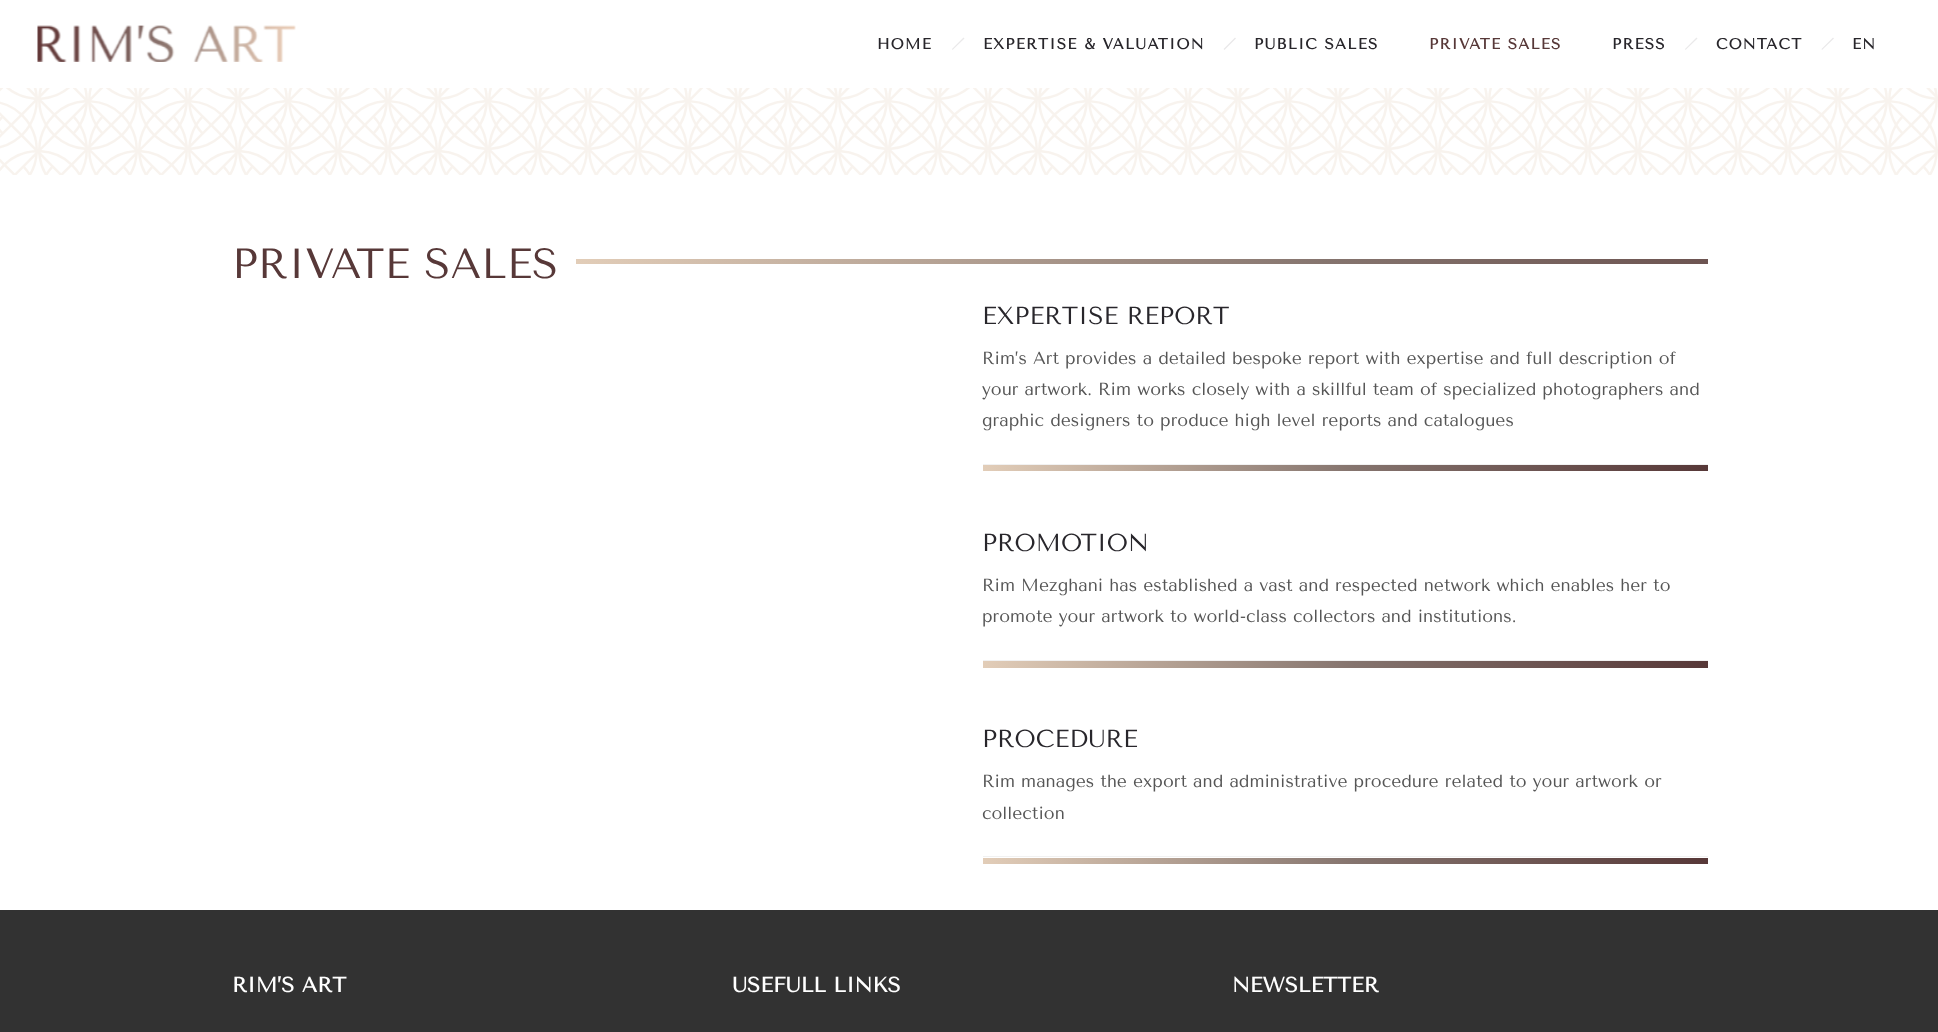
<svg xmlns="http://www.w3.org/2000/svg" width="1938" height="1032">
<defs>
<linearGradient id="g1" gradientUnits="userSpaceOnUse" x1="576" y1="259" x2="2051" y2="259"><stop offset="0" stop-color="#e2cdb8"/><stop offset="0.51" stop-color="#85746e"/><stop offset="1" stop-color="#573838"/></linearGradient>
<linearGradient id="g2" gradientUnits="userSpaceOnUse" x1="983" y1="468" x2="1708" y2="468"><stop offset="0" stop-color="#e2cdb8"/><stop offset="0.51" stop-color="#85746e"/><stop offset="1" stop-color="#573838"/></linearGradient>
<linearGradient id="g3" gradientUnits="userSpaceOnUse" x1="983" y1="664" x2="1708" y2="664"><stop offset="0" stop-color="#e2cdb8"/><stop offset="0.51" stop-color="#85746e"/><stop offset="1" stop-color="#573838"/></linearGradient>
<linearGradient id="g4" gradientUnits="userSpaceOnUse" x1="983" y1="860" x2="1708" y2="860"><stop offset="0" stop-color="#e2cdb8"/><stop offset="0.51" stop-color="#85746e"/><stop offset="1" stop-color="#573838"/></linearGradient>
</defs>
<rect width="100%" height="100%" fill="#fff"/>
<image x="37" y="25" width="259" height="37" href="media/1.png"/>
<text x="877" y="49" style="font-family:Tenor Sans;font-size:15px;font-weight:bold;letter-spacing:1.25px;fill:#28262b">HOME</text>
<path d="M963.5 37.5l1 1l-12 11.5l-.5-1z" fill="#eae9ea"/>
<text x="983" y="49" style="font-family:Tenor Sans;font-size:15px;font-weight:bold;letter-spacing:1.25px;fill:#28262b">EXPERTISE &amp; VALUATION</text>
<path d="M1235 37.5l1 1l-11.5 11.5l-1-1z" fill="#eae9ea"/>
<text x="1254" y="49" style="font-family:Tenor Sans;font-size:15px;font-weight:bold;letter-spacing:1.25px;fill:#28262b">PUBLIC SALES</text>
<text x="1429" y="49" style="font-family:Tenor Sans;font-size:15px;font-weight:bold;letter-spacing:1.25px;fill:#573838">PRIVATE SALES</text>
<text x="1612" y="49" style="font-family:Tenor Sans;font-size:15px;font-weight:bold;letter-spacing:1.25px;fill:#28262b">PRESS</text>
<path d="M1696.5 37.5l1 1l-12 11.5l-.5-1z" fill="#eae9ea"/>
<text x="1716" y="49" style="font-family:Tenor Sans;font-size:15px;font-weight:bold;letter-spacing:1.25px;fill:#28262b">CONTACT</text>
<path d="M1833 37.5l1 1l-12 11.5l-.5-1z" fill="#eae9ea"/>
<text x="1852" y="49" style="font-family:Tenor Sans;font-size:15px;font-weight:bold;letter-spacing:1.25px;fill:#28262b">EN</text>
<image x="0" y="88" width="1938" height="87" href="media/2.png"/>
<text x="232" y="278" style="font-family:Tenor Sans;font-size:42px;fill:#573838">PRIVATE SALES</text>
<rect x="576" y="259" width="1132" height="5" fill="url(#g1)"/>
<text x="982" y="324" style="font-family:Tenor Sans;font-size:24.5px;fill:#28262b">EXPERTISE REPORT</text>
<text x="982" y="364" style="font-family:Tenor Sans;font-size:17.5px;fill:#565656">Rim’s Art provides a detailed bespoke report with expertise and full description of</text>
<text x="982" y="395" style="font-family:Tenor Sans;font-size:17.5px;fill:#565656">your artwork. Rim works closely with a skillful team of specialized photographers and</text>
<text x="982" y="426" style="font-family:Tenor Sans;font-size:17.5px;fill:#565656">graphic designers to produce high level reports and catalogues</text>
<rect x="983" y="465" width="725" height="6" fill="url(#g2)"/>
<rect x="983" y="464" width="725" height="1" fill="#f1f1f1"/>
<text x="982" y="551" style="font-family:Tenor Sans;font-size:24.5px;fill:#28262b">PROMOTION</text>
<text x="982" y="591" style="font-family:Tenor Sans;font-size:17.5px;fill:#565656">Rim Mezghani has established a vast and respected network which enables her to</text>
<text x="982" y="622" style="font-family:Tenor Sans;font-size:17.5px;fill:#565656">promote your artwork to world-class collectors and institutions.</text>
<rect x="983" y="661" width="725" height="7" fill="url(#g3)"/>
<rect x="983" y="660" width="725" height="1" fill="#f1f1f1"/>
<text x="982" y="747" style="font-family:Tenor Sans;font-size:24.5px;fill:#28262b">PROCEDURE</text>
<text x="982" y="787" style="font-family:Tenor Sans;font-size:17.5px;fill:#565656">Rim manages the export and administrative procedure related to your artwork or</text>
<text x="982" y="819" style="font-family:Tenor Sans;font-size:17.5px;fill:#565656">collection</text>
<rect x="983" y="858" width="725" height="6" fill="url(#g4)"/>
<rect x="983" y="856" width="725" height="1" fill="#f1f1f1"/>
<rect y="910" width="1938" height="122" fill="#323232"/>
<text x="232" y="992" style="font-family:Tenor Sans;font-size:21px;font-weight:bold;fill:#fff">RIM’S ART</text>
<text x="732" y="992" style="font-family:Tenor Sans;font-size:21px;font-weight:bold;fill:#fff">USEFULL LINKS</text>
<text x="1232" y="992" style="font-family:Tenor Sans;font-size:21px;font-weight:bold;fill:#fff">NEWSLETTER</text>
</svg>
